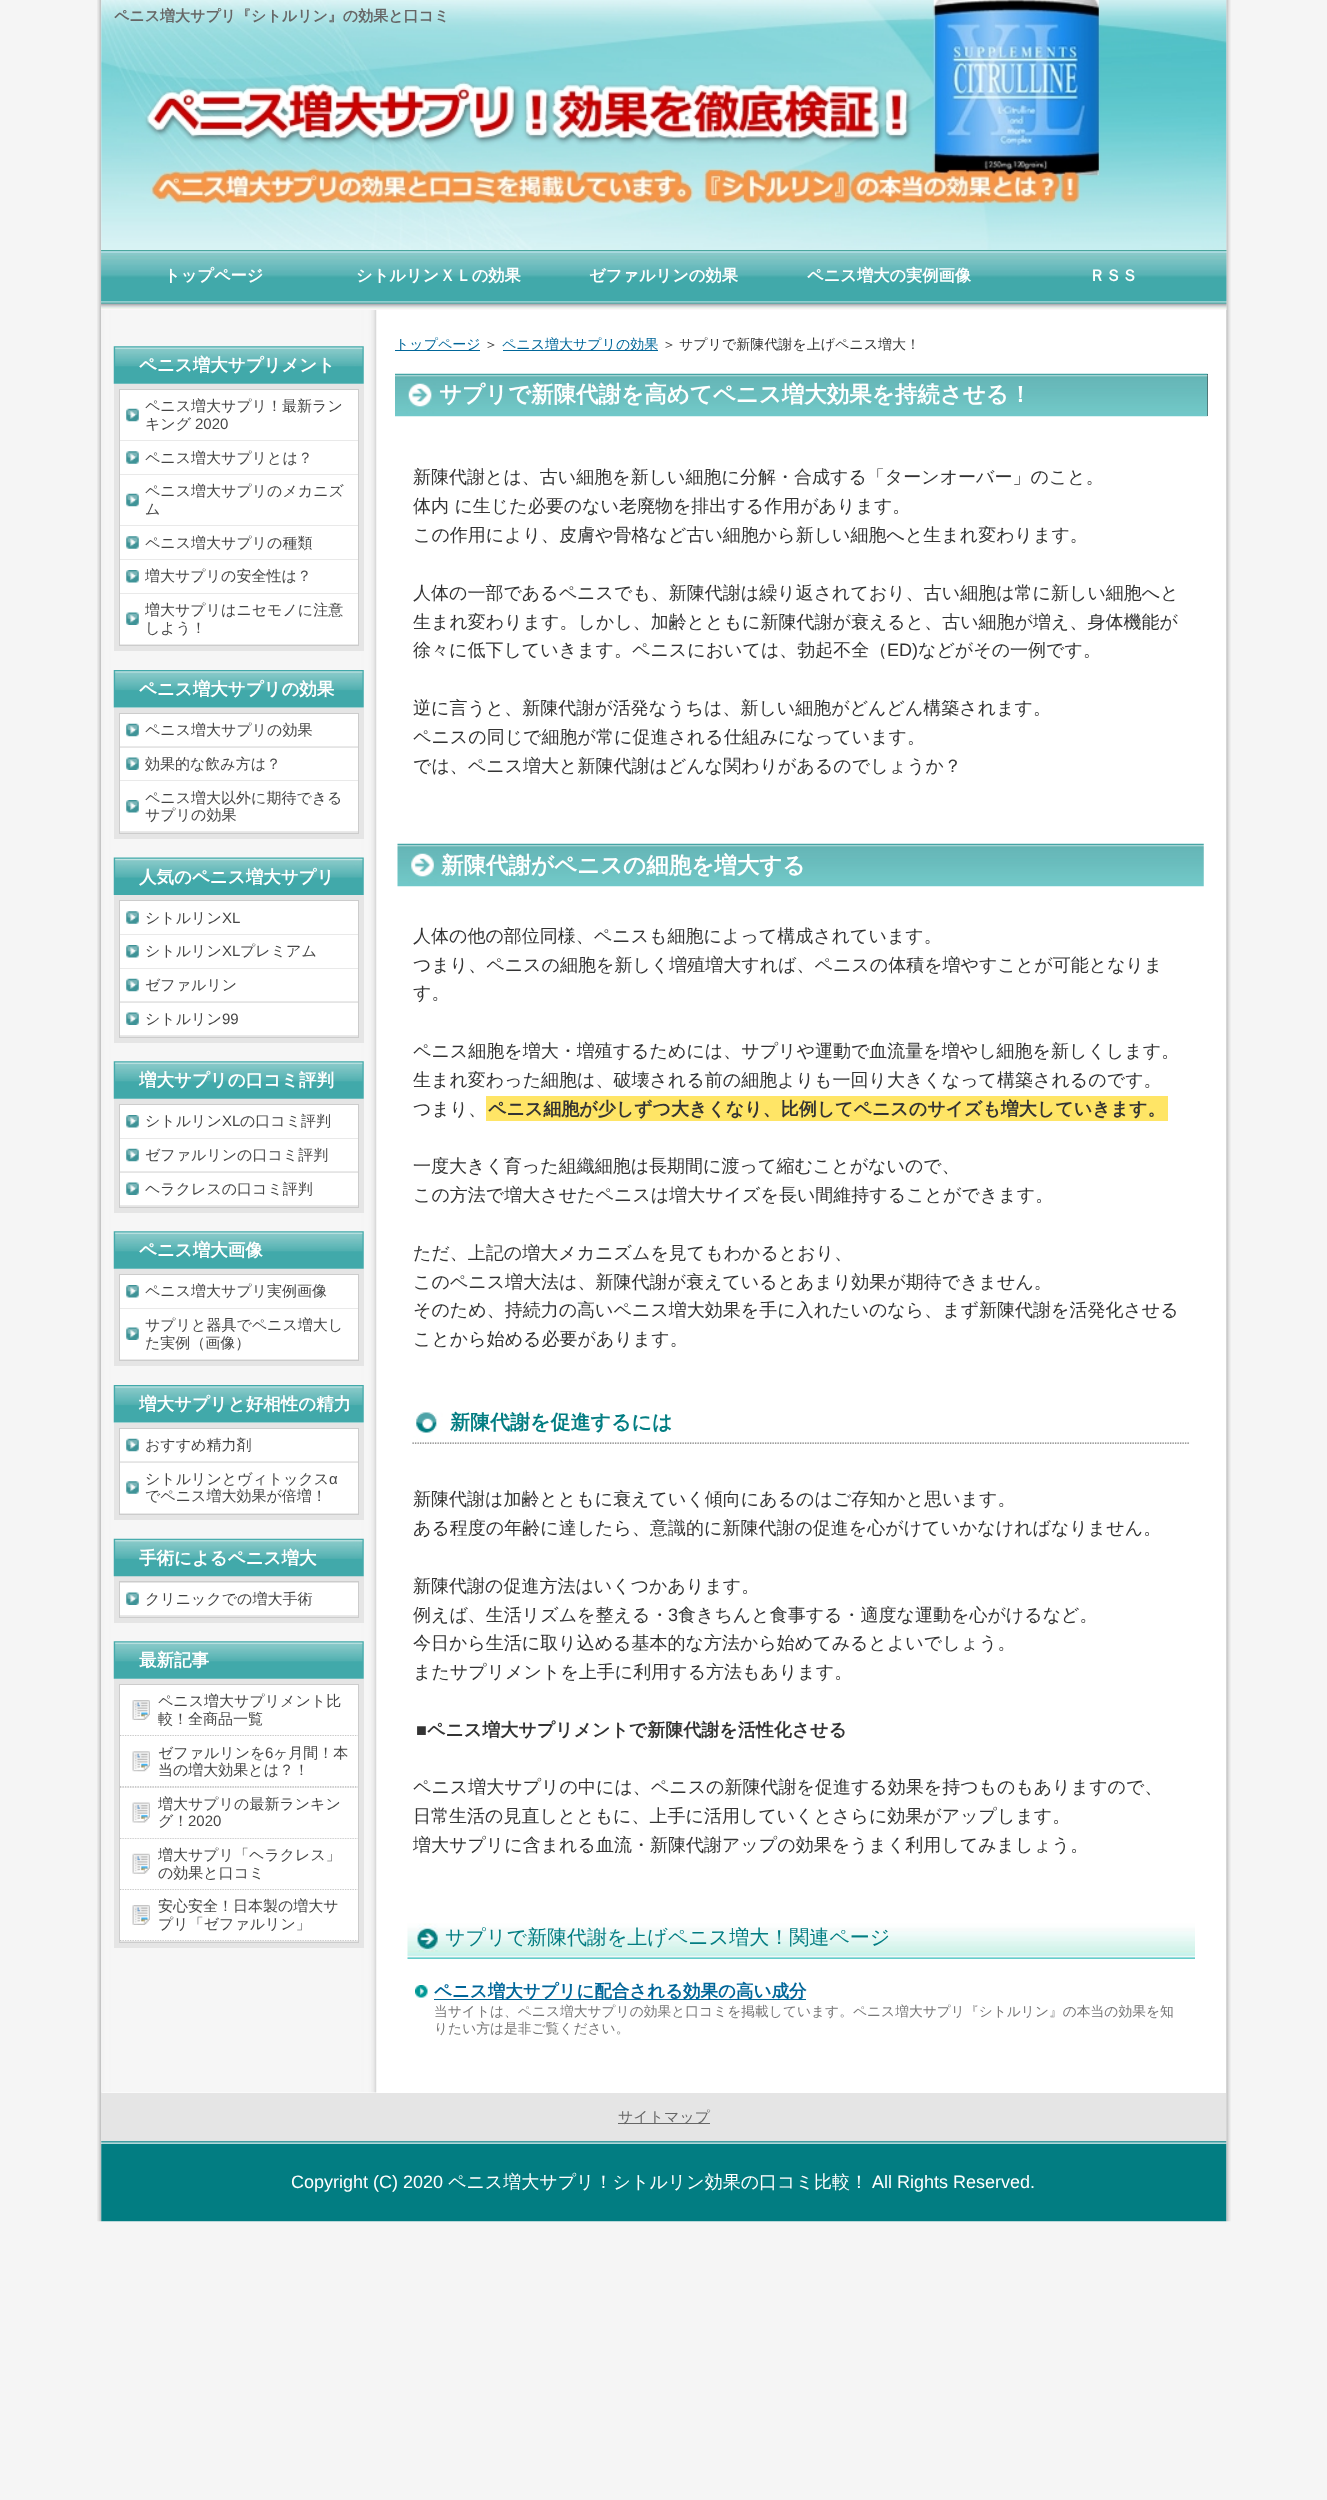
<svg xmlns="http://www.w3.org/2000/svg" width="1327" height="2500">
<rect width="100%" height="100%" fill="#f5f5f5"/>
<image x="97" y="0" width="1134" height="2222" href="media/1.png"/>
<image x="101" y="0" width="1126" height="250" href="media/2.png"/>
<text x="114" y="21" style="font-family:WenQuanYi Zen Hei;font-size:15px;font-weight:bold;fill:#666">ペニス増大サプリ『シトルリン』の効果と口コミ</text>
<image x="101" y="308" width="276" height="1785" href="media/6.png"/>
<image x="101" y="250" width="1126" height="60" href="media/3.png"/>
<image x="101" y="250" width="1" height="57" href="media/4.png"/>
<text x="164" y="281" style="font-family:WenQuanYi Zen Hei;font-size:16.25px;font-weight:bold;fill:#fff">トップページ</text>
<text x="356" y="281" style="font-family:WenQuanYi Zen Hei;font-size:16.25px;font-weight:bold;fill:#fff">シトルリンＸＬの効果</text>
<text x="589" y="281" style="font-family:WenQuanYi Zen Hei;font-size:16.25px;font-weight:bold;fill:#fff">ゼファルリンの効果</text>
<text x="807" y="281" style="font-family:WenQuanYi Zen Hei;font-size:16.25px;font-weight:bold;fill:#fff">ペニス増大の実例画像</text>
<image x="1226" y="250" width="1" height="60" href="media/5.png"/>
<text x="1089" y="281" style="font-family:WenQuanYi Zen Hei;font-size:16.25px;font-weight:bold;fill:#fff">ＲＳＳ</text>
<image x="113" y="346" width="251" height="38" href="media/7.png"/>
<text x="139" y="371" style="font-family:WenQuanYi Zen Hei;font-size:17.5px;font-weight:bold;fill:#fff">ペニス増大サプリメント</text>
<rect x="114" y="384" width="250" height="267" fill="#e5e5e5"/>
<rect x="119.5" y="389.5" width="239" height="256" fill="none" stroke="#ccc"/>
<rect x="120" y="440" width="238" height="1" fill="#e9e9e9"/>
<rect x="120" y="390" width="238" height="50" fill="#fff"/>
<image x="126" y="408" width="13" height="14" href="media/8.png"/>
<text x="145" y="411" style="font-family:WenQuanYi Zen Hei;font-size:15px;font-weight:500;fill:#454545">ペニス増大サプリ！最新ラン</text>
<text x="145" y="429" style="font-family:WenQuanYi Zen Hei;font-size:15px;font-weight:500;fill:#454545">キング</text>
<text x="195" y="429" style="font-family:Liberation Sans;font-size:15px;fill:#454545">2020</text>
<rect x="120" y="474" width="238" height="1" fill="#e9e9e9"/>
<rect x="120" y="441" width="238" height="33" fill="#fff"/>
<image x="126" y="451" width="13" height="13" href="media/9.png"/>
<text x="145" y="463" style="font-family:WenQuanYi Zen Hei;font-size:15px;font-weight:500;fill:#454545">ペニス増大サプリとは？</text>
<rect x="120" y="525" width="238" height="1" fill="#e9e9e9"/>
<rect x="120" y="475" width="238" height="50" fill="#fff"/>
<image x="126" y="493" width="13" height="14" href="media/8.png"/>
<text x="145" y="496" style="font-family:WenQuanYi Zen Hei;font-size:15px;font-weight:500;fill:#454545">ペニス増大サプリのメカニズ</text>
<text x="145" y="514" style="font-family:WenQuanYi Zen Hei;font-size:15px;font-weight:500;fill:#454545">ム</text>
<rect x="120" y="559" width="238" height="1" fill="#e9e9e9"/>
<rect x="120" y="526" width="238" height="33" fill="#fff"/>
<image x="126" y="536" width="13" height="13" href="media/9.png"/>
<text x="145" y="548" style="font-family:WenQuanYi Zen Hei;font-size:15px;font-weight:500;fill:#454545">ペニス増大サプリの種類</text>
<rect x="120" y="593" width="238" height="1" fill="#e9e9e9"/>
<rect x="120" y="560" width="238" height="33" fill="#fff"/>
<image x="126" y="570" width="13" height="13" href="media/10.png"/>
<text x="145" y="581" style="font-family:WenQuanYi Zen Hei;font-size:15px;font-weight:500;fill:#454545">増大サプリの安全性は？</text>
<rect x="120" y="644" width="238" height="1" fill="#e9e9e9"/>
<rect x="120" y="594" width="238" height="50" fill="#fff"/>
<image x="126" y="612" width="13" height="13" href="media/11.png"/>
<text x="145" y="615" style="font-family:WenQuanYi Zen Hei;font-size:15px;font-weight:500;fill:#454545">増大サプリはニセモノに注意</text>
<text x="145" y="633" style="font-family:WenQuanYi Zen Hei;font-size:15px;font-weight:500;fill:#454545">しよう！</text>
<image x="113" y="670" width="251" height="38" href="media/12.png"/>
<text x="139" y="695" style="font-family:WenQuanYi Zen Hei;font-size:17.5px;font-weight:bold;fill:#fff">ペニス増大サプリの効果</text>
<rect x="114" y="708" width="250" height="131" fill="#e5e5e5"/>
<rect x="119.5" y="713.5" width="239" height="120" fill="none" stroke="#ccc"/>
<rect x="120" y="746" width="238" height="1" fill="#e9e9e9"/>
<rect x="120" y="714" width="238" height="32" fill="#fff"/>
<image x="126" y="723" width="13" height="14" href="media/8.png"/>
<text x="145" y="735" style="font-family:WenQuanYi Zen Hei;font-size:15px;font-weight:500;fill:#454545">ペニス増大サプリの効果</text>
<rect x="120" y="780" width="238" height="1" fill="#e9e9e9"/>
<rect x="120" y="748" width="238" height="32" fill="#fff"/>
<image x="126" y="757" width="13" height="13" href="media/11.png"/>
<text x="145" y="769" style="font-family:WenQuanYi Zen Hei;font-size:15px;font-weight:500;fill:#454545">効果的な飲み方は？</text>
<rect x="120" y="831" width="238" height="1" fill="#e9e9e9"/>
<rect x="120" y="781" width="238" height="50" fill="#fff"/>
<image x="126" y="800" width="13" height="13" href="media/10.png"/>
<text x="145" y="803" style="font-family:WenQuanYi Zen Hei;font-size:15px;font-weight:500;fill:#454545">ペニス増大以外に期待できる</text>
<text x="145" y="820" style="font-family:WenQuanYi Zen Hei;font-size:15px;font-weight:500;fill:#454545">サプリの効果</text>
<image x="113" y="857" width="251" height="38" href="media/13.png"/>
<text x="139" y="883" style="font-family:WenQuanYi Zen Hei;font-size:17.5px;font-weight:bold;fill:#fff">人気のペニス増大サプリ</text>
<rect x="114" y="895" width="250" height="148" fill="#e5e5e5"/>
<rect x="119.5" y="900.5" width="239" height="137" fill="none" stroke="#ccc"/>
<rect x="120" y="934" width="238" height="1" fill="#e9e9e9"/>
<rect x="120" y="901" width="238" height="33" fill="#fff"/>
<image x="126" y="911" width="13" height="13" href="media/9.png"/>
<text x="145" y="923" style="font-family:WenQuanYi Zen Hei;font-size:15px;font-weight:500;fill:#454545">シトルリン</text>
<text x="222" y="923" style="font-family:Liberation Sans;font-size:15px;fill:#454545">XL</text>
<rect x="120" y="968" width="238" height="1" fill="#e9e9e9"/>
<rect x="120" y="935" width="238" height="33" fill="#fff"/>
<image x="126" y="945" width="13" height="13" href="media/10.png"/>
<text x="145" y="956" style="font-family:WenQuanYi Zen Hei;font-size:15px;font-weight:500;fill:#454545">シトルリン</text>
<text x="222" y="956" style="font-family:Liberation Sans;font-size:15px;fill:#454545">XL</text>
<text x="240" y="956" style="font-family:WenQuanYi Zen Hei;font-size:15px;font-weight:500;fill:#454545">プレミアム</text>
<rect x="120" y="1001" width="238" height="1" fill="#e9e9e9"/>
<rect x="120" y="969" width="238" height="32" fill="#fff"/>
<image x="126" y="978" width="13" height="14" href="media/8.png"/>
<text x="145" y="990" style="font-family:WenQuanYi Zen Hei;font-size:15px;font-weight:500;fill:#454545">ゼファルリン</text>
<rect x="120" y="1035" width="238" height="1" fill="#e9e9e9"/>
<rect x="120" y="1003" width="238" height="32" fill="#fff"/>
<image x="126" y="1012" width="13" height="13" href="media/11.png"/>
<text x="145" y="1024" style="font-family:WenQuanYi Zen Hei;font-size:15px;font-weight:500;fill:#454545">シトルリン</text>
<text x="222" y="1024" style="font-family:Liberation Sans;font-size:15px;fill:#454545">99</text>
<image x="113" y="1061" width="251" height="38" href="media/7.png"/>
<text x="139" y="1086" style="font-family:WenQuanYi Zen Hei;font-size:17.5px;font-weight:bold;fill:#fff">増大サプリの口コミ評判</text>
<rect x="114" y="1099" width="250" height="114" fill="#e5e5e5"/>
<rect x="119.5" y="1104.5" width="239" height="103" fill="none" stroke="#ccc"/>
<rect x="120" y="1138" width="238" height="1" fill="#e9e9e9"/>
<rect x="120" y="1105" width="238" height="33" fill="#fff"/>
<image x="126" y="1115" width="13" height="13" href="media/10.png"/>
<text x="145" y="1126" style="font-family:WenQuanYi Zen Hei;font-size:15px;font-weight:500;fill:#454545">シトルリン</text>
<text x="222" y="1126" style="font-family:Liberation Sans;font-size:15px;fill:#454545">XL</text>
<text x="240" y="1126" style="font-family:WenQuanYi Zen Hei;font-size:15px;font-weight:500;fill:#454545">の口コミ評判</text>
<rect x="120" y="1171" width="238" height="1" fill="#e9e9e9"/>
<rect x="120" y="1139" width="238" height="32" fill="#fff"/>
<image x="126" y="1148" width="13" height="14" href="media/8.png"/>
<text x="145" y="1160" style="font-family:WenQuanYi Zen Hei;font-size:15px;font-weight:500;fill:#454545">ゼファルリンの口コミ評判</text>
<rect x="120" y="1205" width="238" height="1" fill="#e9e9e9"/>
<rect x="120" y="1173" width="238" height="32" fill="#fff"/>
<image x="126" y="1182" width="13" height="13" href="media/11.png"/>
<text x="145" y="1194" style="font-family:WenQuanYi Zen Hei;font-size:15px;font-weight:500;fill:#454545">ヘラクレスの口コミ評判</text>
<image x="113" y="1231" width="251" height="38" href="media/7.png"/>
<text x="139" y="1256" style="font-family:WenQuanYi Zen Hei;font-size:17.5px;font-weight:bold;fill:#fff">ペニス増大画像</text>
<rect x="114" y="1269" width="250" height="97" fill="#e5e5e5"/>
<rect x="119.5" y="1274.5" width="239" height="86" fill="none" stroke="#ccc"/>
<rect x="120" y="1308" width="238" height="1" fill="#e9e9e9"/>
<rect x="120" y="1275" width="238" height="33" fill="#fff"/>
<image x="126" y="1285" width="13" height="13" href="media/10.png"/>
<text x="145" y="1296" style="font-family:WenQuanYi Zen Hei;font-size:15px;font-weight:500;fill:#454545">ペニス増大サプリ実例画像</text>
<rect x="120" y="1359" width="238" height="1" fill="#e9e9e9"/>
<rect x="120" y="1309" width="238" height="50" fill="#fff"/>
<image x="126" y="1327" width="13" height="13" href="media/11.png"/>
<text x="145" y="1330" style="font-family:WenQuanYi Zen Hei;font-size:15px;font-weight:500;fill:#454545">サプリと器具でペニス増大し</text>
<text x="145" y="1348" style="font-family:WenQuanYi Zen Hei;font-size:15px;font-weight:500;fill:#454545">た実例（画像）</text>
<image x="113" y="1385" width="251" height="38" href="media/12.png"/>
<text x="139" y="1410" style="font-family:WenQuanYi Zen Hei;font-size:17.5px;font-weight:bold;fill:#fff">増大サプリと好相性の精力</text>
<rect x="114" y="1423" width="250" height="97" fill="#e5e5e5"/>
<rect x="119.5" y="1428.5" width="239" height="86" fill="none" stroke="#ccc"/>
<rect x="120" y="1461" width="238" height="1" fill="#e9e9e9"/>
<rect x="120" y="1429" width="238" height="32" fill="#fff"/>
<image x="126" y="1438" width="13" height="14" href="media/8.png"/>
<text x="145" y="1450" style="font-family:WenQuanYi Zen Hei;font-size:15px;font-weight:500;fill:#454545">おすすめ精力剤</text>
<rect x="120" y="1513" width="238" height="1" fill="#e9e9e9"/>
<rect x="120" y="1463" width="238" height="50" fill="#fff"/>
<image x="126" y="1481" width="13" height="13" href="media/9.png"/>
<text x="145" y="1484" style="font-family:WenQuanYi Zen Hei;font-size:15px;font-weight:500;fill:#454545">シトルリンとヴィトックス</text>
<text x="329" y="1484" style="font-family:Liberation Sans;font-size:15px;fill:#454545">α</text>
<text x="145" y="1501" style="font-family:WenQuanYi Zen Hei;font-size:15px;font-weight:500;fill:#454545">でペニス増大効果が倍増！</text>
<rect x="114" y="1576" width="250" height="47" fill="#e5e5e5"/>
<image x="113" y="1538" width="251" height="39" href="media/14.png"/>
<text x="139" y="1564" style="font-family:WenQuanYi Zen Hei;font-size:17.5px;font-weight:bold;fill:#fff">手術によるペニス増大</text>
<rect x="119.5" y="1581.5" width="239" height="36" fill="none" stroke="#ccc"/>
<rect x="120" y="1615" width="238" height="1" fill="#e9e9e9"/>
<rect x="120" y="1583" width="238" height="32" fill="#fff"/>
<image x="126" y="1592" width="13" height="13" href="media/11.png"/>
<text x="145" y="1604" style="font-family:WenQuanYi Zen Hei;font-size:15px;font-weight:500;fill:#454545">クリニックでの増大手術</text>
<image x="113" y="1641" width="251" height="38" href="media/7.png"/>
<text x="139" y="1666" style="font-family:WenQuanYi Zen Hei;font-size:17.5px;font-weight:bold;fill:#fff">最新記事</text>
<rect x="114" y="1679" width="250" height="269" fill="#e5e5e5"/>
<rect x="119.5" y="1684.5" width="239" height="258" fill="none" stroke="#ccc"/>
<image x="120" y="1735" width="238" height="1" href="media/15.png"/>
<rect x="120" y="1685" width="238" height="50" fill="#fff"/>
<image x="132" y="1700" width="18" height="20" href="media/16.png"/>
<text x="158" y="1706" style="font-family:WenQuanYi Zen Hei;font-size:15px;font-weight:500;fill:#454545">ペニス増大サプリメント比</text>
<text x="158" y="1724" style="font-family:WenQuanYi Zen Hei;font-size:15px;font-weight:500;fill:#454545">較！全商品一覧</text>
<image x="120" y="1786" width="238" height="2" href="media/17.png"/>
<rect x="120" y="1736" width="238" height="50" fill="#fff"/>
<image x="132" y="1751" width="18" height="21" href="media/18.png"/>
<text x="158" y="1758" style="font-family:WenQuanYi Zen Hei;font-size:15px;font-weight:500;fill:#454545">ゼファルリンを</text>
<text x="265" y="1758" style="font-family:Liberation Sans;font-size:15px;fill:#454545">6</text>
<text x="273" y="1758" style="font-family:WenQuanYi Zen Hei;font-size:15px;font-weight:500;fill:#454545">ヶ月間！本</text>
<text x="158" y="1775" style="font-family:WenQuanYi Zen Hei;font-size:15px;font-weight:500;fill:#454545">当の増大効果とは？！</text>
<image x="120" y="1787" width="238" height="52" href="media/19.png"/>
<rect x="120" y="1788" width="238" height="50" fill="#fff"/>
<image x="132" y="1802" width="18" height="21" href="media/20.png"/>
<text x="158" y="1809" style="font-family:WenQuanYi Zen Hei;font-size:15px;font-weight:500;fill:#454545">増大サプリの最新ランキン</text>
<text x="158" y="1826" style="font-family:WenQuanYi Zen Hei;font-size:15px;font-weight:500;fill:#454545">グ！</text>
<text x="188" y="1826" style="font-family:Liberation Sans;font-size:15px;fill:#454545">2020</text>
<image x="120" y="1889" width="238" height="1" href="media/15.png"/>
<rect x="120" y="1839" width="238" height="50" fill="#fff"/>
<image x="132" y="1853" width="18" height="21" href="media/21.png"/>
<text x="158" y="1860" style="font-family:WenQuanYi Zen Hei;font-size:15px;font-weight:500;fill:#454545">増大サプリ「ヘラクレス」</text>
<text x="158" y="1878" style="font-family:WenQuanYi Zen Hei;font-size:15px;font-weight:500;fill:#454545">の効果と口コミ</text>
<image x="120" y="1940" width="238" height="1" href="media/15.png"/>
<rect x="120" y="1890" width="238" height="50" fill="#fff"/>
<image x="132" y="1905" width="18" height="20" href="media/16.png"/>
<text x="158" y="1911" style="font-family:WenQuanYi Zen Hei;font-size:15px;font-weight:500;fill:#454545">安心安全！日本製の増大サ</text>
<text x="158" y="1929" style="font-family:WenQuanYi Zen Hei;font-size:15px;font-weight:500;fill:#454545">プリ「ゼファルリン」</text>
<rect x="395" y="350" width="85" height="1" fill="#069"/>
<text x="395" y="349" style="font-family:WenQuanYi Zen Hei;font-size:14px;font-weight:500;fill:#069">トップページ</text>
<text x="484" y="349" style="font-family:WenQuanYi Zen Hei;font-size:14px;font-weight:500;fill:#333">＞</text>
<rect x="503" y="350" width="155" height="1" fill="#069"/>
<text x="502" y="349" style="font-family:WenQuanYi Zen Hei;font-size:14px;font-weight:500;fill:#069">ペニス増大サプリの効果</text>
<text x="662" y="349" style="font-family:WenQuanYi Zen Hei;font-size:14px;font-weight:500;fill:#333">＞</text>
<text x="679" y="349" style="font-family:WenQuanYi Zen Hei;font-size:14px;font-weight:500;fill:#333">サプリで新陳代謝を上げペニス増大！</text>
<rect x="1207" y="374" width="1" height="42" fill="#333"/>
<image x="395" y="373" width="813" height="44" href="media/22.png"/>
<text x="439" y="402" style="font-family:WenQuanYi Zen Hei;font-size:22.5px;font-weight:bold;fill:#fff">サプリで新陳代謝を高めてペニス増大効果を持続させる！</text>
<text x="413" y="483" style="font-family:WenQuanYi Zen Hei;font-size:18px;font-weight:500;fill:#333">新陳代謝とは、古い細胞を新しい細胞に分解・合成する「ターンオーバー」のこと。</text>
<text x="413" y="512" style="font-family:WenQuanYi Zen Hei;font-size:18px;font-weight:500;fill:#333">体内 に生じた必要のない老廃物を排出する作用があります。</text>
<text x="413" y="541" style="font-family:WenQuanYi Zen Hei;font-size:18px;font-weight:500;fill:#333">この作用により、皮膚や骨格など古い細胞から新しい細胞へと生まれ変わります。</text>
<text x="413" y="599" style="font-family:WenQuanYi Zen Hei;font-size:18px;font-weight:500;fill:#333">人体の一部であるペニスでも、新陳代謝は繰り返されており、古い細胞は常に新しい細胞へと</text>
<text x="413" y="628" style="font-family:WenQuanYi Zen Hei;font-size:18px;font-weight:500;fill:#333">生まれ変わります。しかし、加齢とともに新陳代謝が衰えると、古い細胞が増え、身体機能が</text>
<text x="413" y="656" style="font-family:WenQuanYi Zen Hei;font-size:18px;font-weight:500;fill:#333">徐々に低下していきます。ペニスにおいては、勃起不全（</text>
<text x="887" y="656" style="font-family:Liberation Sans;font-size:18px;fill:#333">ED)</text>
<text x="918" y="656" style="font-family:WenQuanYi Zen Hei;font-size:18px;font-weight:500;fill:#333">などがその一例です。</text>
<text x="413" y="714" style="font-family:WenQuanYi Zen Hei;font-size:18px;font-weight:500;fill:#333">逆に言うと、新陳代謝が活発なうちは、新しい細胞がどんどん構築されます。</text>
<text x="413" y="743" style="font-family:WenQuanYi Zen Hei;font-size:18px;font-weight:500;fill:#333">ペニスの同じで細胞が常に促進される仕組みになっています。</text>
<text x="413" y="772" style="font-family:WenQuanYi Zen Hei;font-size:18px;font-weight:500;fill:#333">では、ペニス増大と新陳代謝はどんな関わりがあるのでしょうか？</text>
<image x="397" y="843" width="807" height="44" href="media/23.png"/>
<text x="441" y="873" style="font-family:WenQuanYi Zen Hei;font-size:22.5px;font-weight:bold;fill:#fff">新陳代謝がペニスの細胞を増大する</text>
<text x="413" y="942" style="font-family:WenQuanYi Zen Hei;font-size:18px;font-weight:500;fill:#333">人体の他の部位同様、ペニスも細胞によって構成されています。</text>
<text x="413" y="971" style="font-family:WenQuanYi Zen Hei;font-size:18px;font-weight:500;fill:#333">つまり、ペニスの細胞を新しく増殖増大すれば、ペニスの体積を増やすことが可能となりま</text>
<text x="413" y="999" style="font-family:WenQuanYi Zen Hei;font-size:18px;font-weight:500;fill:#333">す。</text>
<text x="413" y="1057" style="font-family:WenQuanYi Zen Hei;font-size:18px;font-weight:500;fill:#333">ペニス細胞を増大・増殖するためには、サプリや運動で血流量を増やし細胞を新しくします。</text>
<text x="413" y="1086" style="font-family:WenQuanYi Zen Hei;font-size:18px;font-weight:500;fill:#333">生まれ変わった細胞は、破壊される前の細胞よりも一回り大きくなって構築されるのです。</text>
<text x="413" y="1115" style="font-family:WenQuanYi Zen Hei;font-size:18px;font-weight:500;fill:#333">つまり、</text>
<rect x="486" y="1096" width="682" height="25" fill="#ffe566"/>
<text x="488" y="1115" style="font-family:WenQuanYi Zen Hei;font-size:18px;font-weight:bold;fill:#333">ペニス細胞が少しずつ大きくなり、比例してペニスのサイズも増大していきます。</text>
<text x="413" y="1172" style="font-family:WenQuanYi Zen Hei;font-size:18px;font-weight:500;fill:#333">一度大きく育った組織細胞は長期間に渡って縮むことがないので、</text>
<text x="413" y="1201" style="font-family:WenQuanYi Zen Hei;font-size:18px;font-weight:500;fill:#333">この方法で増大させたペニスは増大サイズを長い間維持することができます。</text>
<text x="413" y="1259" style="font-family:WenQuanYi Zen Hei;font-size:18px;font-weight:500;fill:#333">ただ、上記の増大メカニズムを見てもわかるとおり、</text>
<text x="413" y="1288" style="font-family:WenQuanYi Zen Hei;font-size:18px;font-weight:500;fill:#333">このペニス増大法は、新陳代謝が衰えているとあまり効果が期待できません。</text>
<text x="413" y="1316" style="font-family:WenQuanYi Zen Hei;font-size:18px;font-weight:500;fill:#333">そのため、持続力の高いペニス増大効果を手に入れたいのなら、まず新陳代謝を活発化させる</text>
<text x="413" y="1345" style="font-family:WenQuanYi Zen Hei;font-size:18px;font-weight:500;fill:#333">ことから始める必要があります。</text>
<image x="412" y="1412" width="777" height="32" href="media/24.png"/>
<text x="450" y="1429" style="font-family:WenQuanYi Zen Hei;font-size:20px;font-weight:bold;fill:#027d82">新陳代謝を促進するには</text>
<text x="413" y="1505" style="font-family:WenQuanYi Zen Hei;font-size:18px;font-weight:500;fill:#333">新陳代謝は加齢とともに衰えていく傾向にあるのはご存知かと思います。</text>
<text x="413" y="1534" style="font-family:WenQuanYi Zen Hei;font-size:18px;font-weight:500;fill:#333">ある程度の年齢に達したら、意識的に新陳代謝の促進を心がけていかなければなりません。</text>
<text x="413" y="1592" style="font-family:WenQuanYi Zen Hei;font-size:18px;font-weight:500;fill:#333">新陳代謝の促進方法はいくつかあります。</text>
<text x="413" y="1621" style="font-family:WenQuanYi Zen Hei;font-size:18px;font-weight:500;fill:#333">例えば、生活リズムを整える・</text>
<text x="668" y="1621" style="font-family:Liberation Sans;font-size:18px;fill:#333">3</text>
<text x="678" y="1621" style="font-family:WenQuanYi Zen Hei;font-size:18px;font-weight:500;fill:#333">食きちんと食事する・適度な運動を心がけるなど。</text>
<text x="413" y="1649" style="font-family:WenQuanYi Zen Hei;font-size:18px;font-weight:500;fill:#333">今日から生活に取り込める基本的な方法から始めてみるとよいでしょう。</text>
<text x="413" y="1678" style="font-family:WenQuanYi Zen Hei;font-size:18px;font-weight:500;fill:#333">またサプリメントを上手に利用する方法もあります。</text>
<text x="416" y="1736" style="font-family:Liberation Sans;font-size:18px;font-weight:bold;fill:#333">■</text>
<text x="427" y="1736" style="font-family:WenQuanYi Zen Hei;font-size:18px;font-weight:bold;fill:#333">ペニス増大サプリメントで新陳代謝を活性化させる</text>
<text x="413" y="1793" style="font-family:WenQuanYi Zen Hei;font-size:18px;font-weight:500;fill:#333">ペニス増大サプリの中には、ペニスの新陳代謝を促進する効果を持つものもありますので、</text>
<text x="413" y="1822" style="font-family:WenQuanYi Zen Hei;font-size:18px;font-weight:500;fill:#333">日常生活の見直しとともに、上手に活用していくとさらに効果がアップします。</text>
<text x="413" y="1851" style="font-family:WenQuanYi Zen Hei;font-size:18px;font-weight:500;fill:#333">増大サプリに含まれる血流・新陳代謝アップの効果をうまく利用してみましょう。</text>
<image x="407" y="1923" width="788" height="36" href="media/25.png"/>
<text x="445" y="1944" style="font-family:WenQuanYi Zen Hei;font-size:20px;font-weight:500;fill:#027d82">サプリで新陳代謝を上げペニス増大！関連ページ</text>
<image x="415" y="1985" width="13" height="13" href="media/26.png"/>
<rect x="434" y="1999" width="372" height="1" fill="#069"/>
<text x="434" y="1997" style="font-family:WenQuanYi Zen Hei;font-size:17.5px;font-weight:bold;fill:#069">ペニス増大サプリに配合される効果の高い成分</text>
<text x="434" y="2016" style="font-family:WenQuanYi Zen Hei;font-size:13.75px;font-weight:500;fill:#757575">当サイトは、ペニス増大サプリの効果と口コミを掲載しています。ペニス増大サプリ『シトルリン』の本当の効果を知</text>
<text x="434" y="2033" style="font-family:WenQuanYi Zen Hei;font-size:13.75px;font-weight:500;fill:#757575">りたい方は是非ご覧ください。</text>
<rect x="101" y="2093" width="1125" height="48" fill="#e5e5e5"/>
<rect x="618" y="2123" width="92" height="1" fill="#666"/>
<text x="618" y="2122" style="font-family:WenQuanYi Zen Hei;font-size:15px;font-weight:500;fill:#666">サイトマップ</text>
<image x="101" y="2141" width="1126" height="81" href="media/27.png"/>
<text x="291" y="2188" style="font-family:Liberation Sans;font-size:18px;fill:#fff">Copyright (C) 2020</text>
<text x="448" y="2188" style="font-family:WenQuanYi Zen Hei;font-size:18px;font-weight:500;fill:#fff">ペニス増大サプリ！シトルリン効果の口コミ比較！</text>
<text x="872" y="2188" style="font-family:Liberation Sans;font-size:18px;fill:#fff">All Rights Reserved.</text>
</svg>
